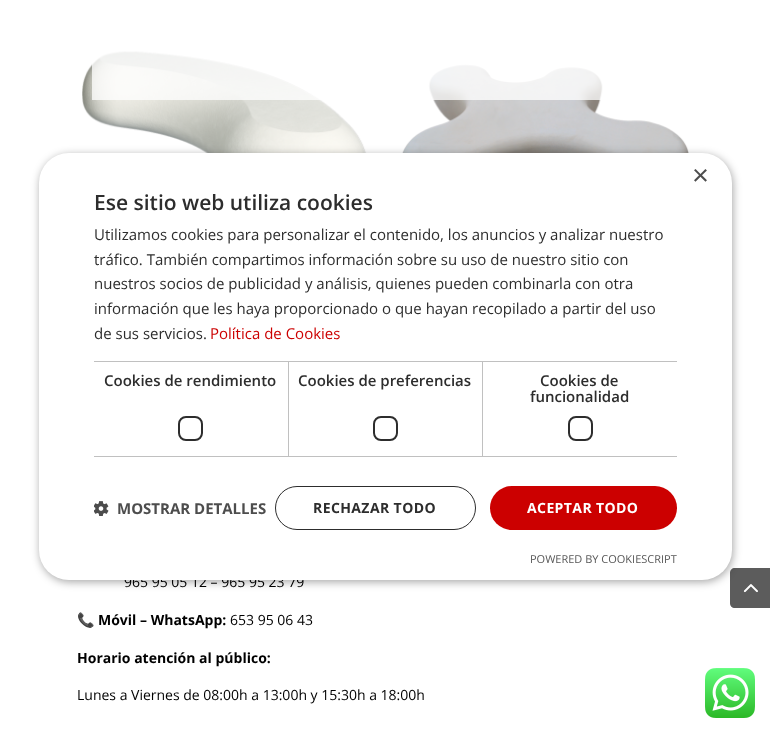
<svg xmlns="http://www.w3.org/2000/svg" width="770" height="733">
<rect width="100%" height="100%" fill="#fff"/>
<image x="82" y="51" width="285" height="102" href="media/2.png"/>
<image x="402" y="64" width="287" height="89" href="media/3.png"/>
<path d="M735 568h35v40h-35c-3 0-5-2-5-5v-30c0-3 2-5 5-5z" fill="#999"/>
<image x="744" y="584" width="14" height="8" href="media/4.png"/>
<path d="M735 568h35v40h-35c-3 0-5-2-5-5v-30c0-3 2-5 5-5z" fill="#00000066"/>
<image x="743" y="584" width="15" height="9" href="media/5.png"/>
<rect x="40" y="155" width="693" height="427" rx="30" fill="#00000059" filter="blur(4px)"/>
<text x="124" y="587" style="font-family:Open Sans;font-size:14px;fill:#000">965 95 05 12 – 965 95 23 79</text>
<rect x="39" y="153" width="693" height="427" rx="30" fill="#fff"/>
<text x="692" y="185" style="font-family:Liberation Sans;font-size:29px;fill:#4d4d4d">×</text>
<text x="94" y="210" style="font-family:Open Sans;font-size:21px;font-weight:600;fill:#2d2d2d">Ese sitio web utiliza cookies</text>
<text x="94" y="240" style="font-family:Open Sans;font-size:15px;fill:#2d2d2d">Utilizamos cookies para personalizar el contenido, los anuncios y analizar nuestro</text>
<text x="94" y="265" style="font-family:Open Sans;font-size:15px;fill:#2d2d2d">tráfico. También compartimos información sobre su uso de nuestro sitio con</text>
<text x="94" y="289" style="font-family:Open Sans;font-size:15px;fill:#2d2d2d">nuestros socios de publicidad y análisis, quienes pueden combinarla con otra</text>
<text x="94" y="314" style="font-family:Open Sans;font-size:15px;fill:#2d2d2d">información que les haya proporcionado o que hayan recopilado a partir del uso</text>
<text x="94" y="339" style="font-family:Open Sans;font-size:15px;fill:#2d2d2d">de sus servicios.</text>
<text x="210" y="339" style="font-family:Open Sans;font-size:15px;fill:#c00">Política de Cookies</text>
<rect x="94" y="361" width="583" height="1" fill="#c0c0c0"/>
<rect x="288" y="361" width="1" height="96" fill="#c0c0c0"/>
<rect x="94" y="456" width="195" height="1" fill="#c0c0c0"/>
<text x="104" y="386" style="font-family:Open Sans;font-size:15px;font-weight:600;fill:#2d2d2d">Cookies de rendimiento</text>
<rect x="179" y="417" width="23" height="23" rx="7" fill="none" stroke="#2d2d2d" stroke-width="2"/>
<rect x="482" y="361" width="1" height="96" fill="#c0c0c0"/>
<rect x="289" y="456" width="388" height="1" fill="#c0c0c0"/>
<text x="298" y="386" style="font-family:Open Sans;font-size:15px;font-weight:600;fill:#2d2d2d">Cookies de preferencias</text>
<rect x="374" y="417" width="23" height="23" rx="7" fill="none" stroke="#2d2d2d" stroke-width="2"/>
<text x="540" y="386" style="font-family:Open Sans;font-size:15px;font-weight:600;fill:#2d2d2d">Cookies de</text>
<text x="530" y="402" style="font-family:Open Sans;font-size:15px;font-weight:600;fill:#2d2d2d">funcionalidad</text>
<rect x="569" y="417" width="23" height="23" rx="7" fill="none" stroke="#2d2d2d" stroke-width="2"/>
<image x="94" y="501" width="15" height="15" href="media/1.png"/>
<text x="117" y="514" style="font-family:Open Sans;font-size:15px;font-weight:bold;fill:#4d4d4d">MOSTRAR DETALLES</text>
<rect x="275.5" y="486.5" width="200" height="43" rx="21.5" fill="none" stroke="#2d2d2d"/>
<text x="313" y="513" style="font-family:Open Sans;font-size:14px;font-weight:bold;letter-spacing:0.4px;fill:#2d2d2d">RECHAZAR TODO</text>
<rect x="490" y="486" width="187" height="44" rx="22" fill="#c00"/>
<text x="527" y="513" style="font-family:Open Sans;font-size:14px;font-weight:bold;letter-spacing:0.4px;fill:#fff">ACEPTAR TODO</text>
<text x="530" y="563" style="font-family:Open Sans;font-size:11px;fill:#575757">POWERED BY COOKIESCRIPT</text>
<rect x="92" y="51" width="511" height="49" fill="#ffffffbf"/>
<text x="77" y="625" style="font-family:Noto Color Emoji;font-size:14px;fill:#000">📞</text>
<text x="98" y="625" style="font-family:Open Sans;font-size:14px;font-weight:bold;fill:#000">Móvil – WhatsApp:</text>
<text x="230" y="625" style="font-family:Open Sans;font-size:14px;fill:#000">653 95 06 43</text>
<text x="77" y="663" style="font-family:Open Sans;font-size:14px;font-weight:bold;fill:#000">Horario atención al público:</text>
<text x="77" y="700" style="font-family:Open Sans;font-size:14px;fill:#000">Lunes a Viernes de 08:00h a 13:00h y 15:30h a 18:00h</text>
<image x="705" y="668" width="50" height="50" href="media/6.png"/>
</svg>
